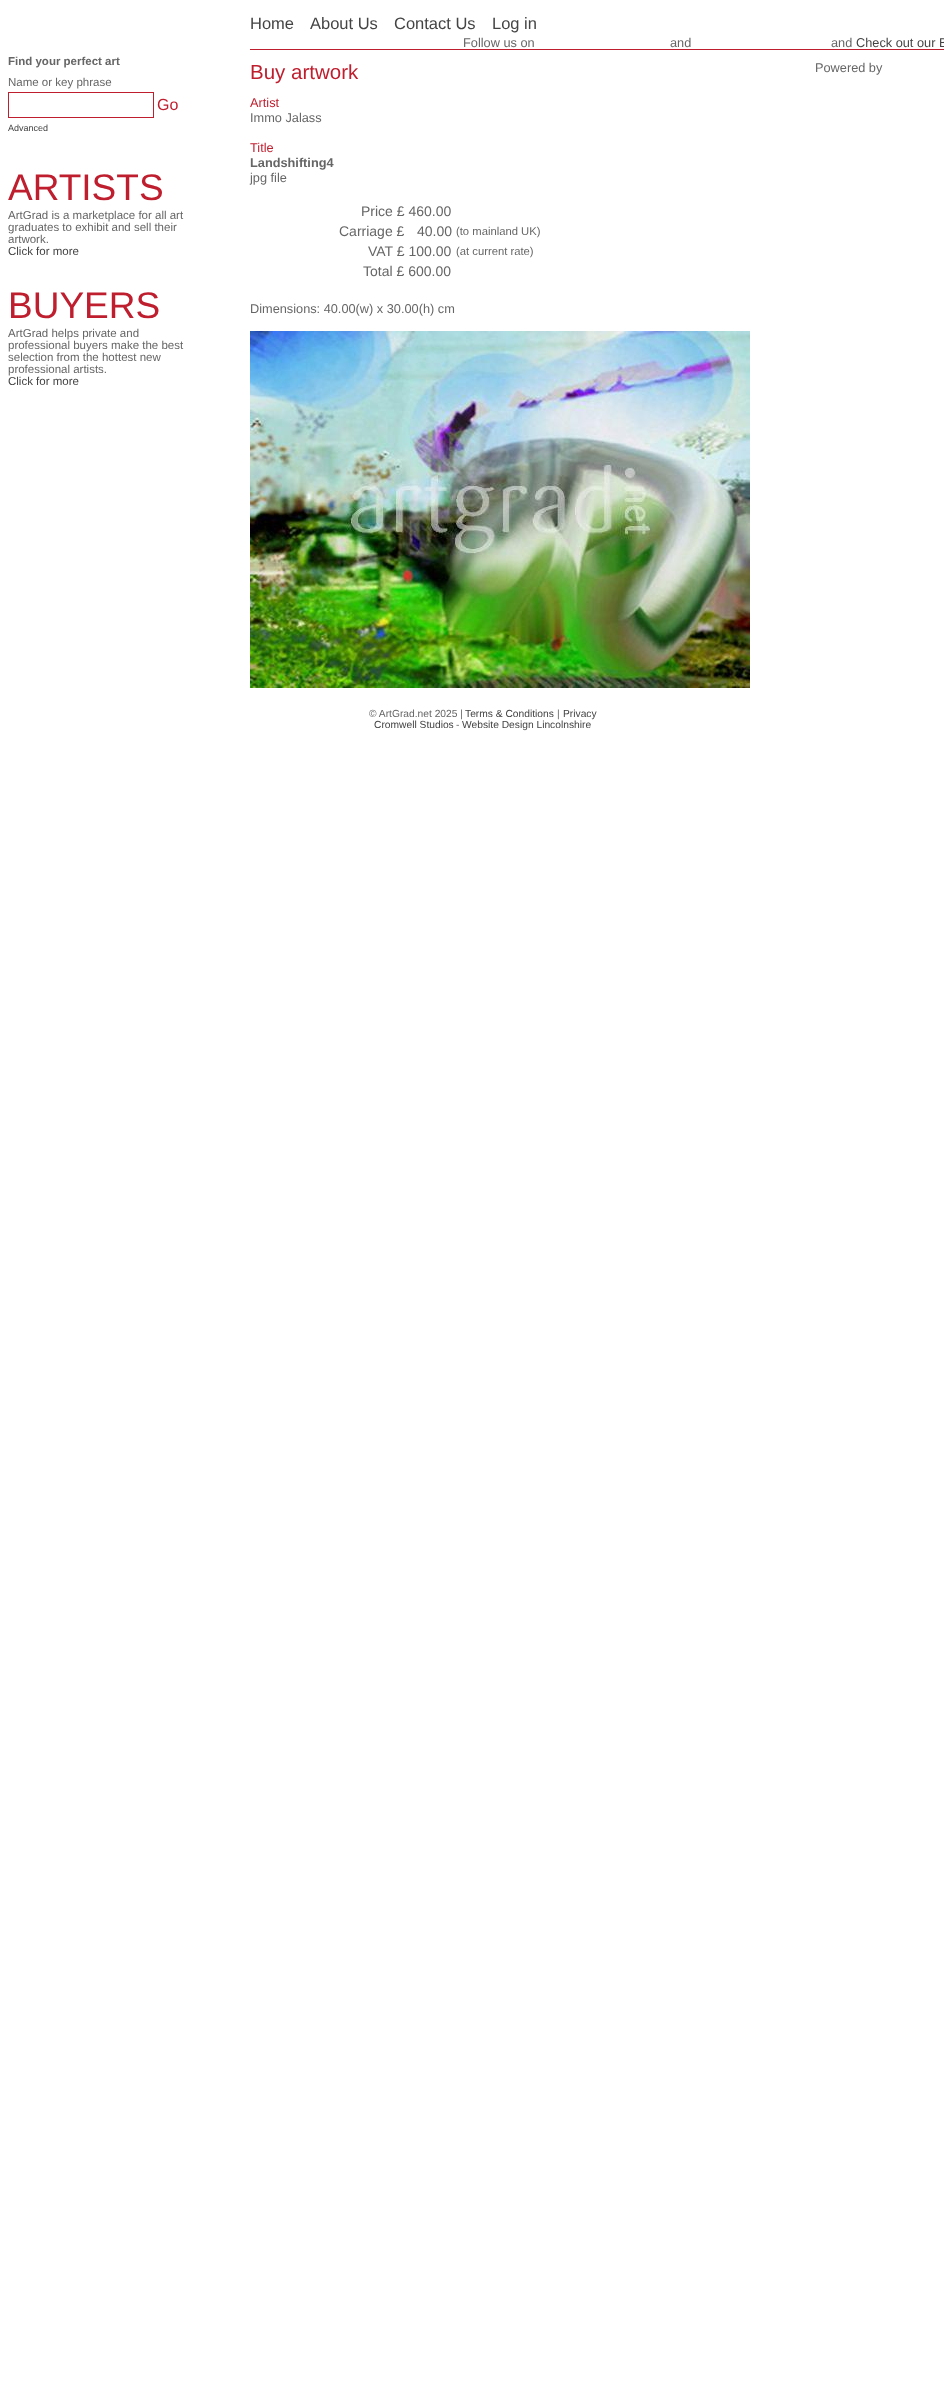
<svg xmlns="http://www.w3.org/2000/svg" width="944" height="2398">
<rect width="100%" height="100%" fill="#fff"/>
<rect x="250" y="49" width="694" height="1" fill="#bf1e2e"/>
<text x="250" y="29" style="font-family:Liberation Sans;font-size:16.5px;fill:#444">Home</text>
<text x="310" y="29" style="font-family:Liberation Sans;font-size:16.5px;fill:#444">About Us</text>
<text x="394" y="29" style="font-family:Liberation Sans;font-size:16.5px;fill:#444">Contact Us</text>
<text x="492" y="29" style="font-family:Liberation Sans;font-size:16.5px;fill:#444">Log in</text>
<text x="463" y="47" style="font-family:Liberation Sans;font-size:12.75px;fill:#666">Follow us on</text>
<text x="670" y="47" style="font-family:Liberation Sans;font-size:12.75px;fill:#666">and</text>
<text x="831" y="47" style="font-family:Liberation Sans;font-size:12.75px;fill:#666">and</text>
<text x="856" y="47" style="font-family:Liberation Sans;font-size:12.75px;fill:#444">Check out our B</text>
<text x="8" y="65" style="font-family:Liberation Sans;font-size:11.5px;font-weight:bold;fill:#666">Find your perfect art</text>
<text x="8" y="86" style="font-family:Liberation Sans;font-size:11.5px;fill:#666">Name or key phrase</text>
<rect x="8.5" y="92.5" width="145" height="25" fill="none" stroke="#bf1e2e"/>
<text x="157" y="110" style="font-family:Liberation Sans;font-size:16px;fill:#bf1e2e">Go</text>
<text x="8" y="131" style="font-family:Liberation Sans;font-size:9px;fill:#444">Advanced</text>
<text x="8" y="200" style="font-family:Liberation Sans;font-size:37px;fill:#bf1e2e">ARTISTS</text>
<text x="8" y="219" style="font-family:Liberation Sans;font-size:11.5px;fill:#666">ArtGrad is a marketplace for all art</text>
<text x="8" y="231" style="font-family:Liberation Sans;font-size:11.5px;fill:#666">graduates to exhibit and sell their</text>
<text x="8" y="243" style="font-family:Liberation Sans;font-size:11.5px;fill:#666">artwork.</text>
<text x="8" y="255" style="font-family:Liberation Sans;font-size:11.5px;fill:#444">Click for more</text>
<text x="8" y="318" style="font-family:Liberation Sans;font-size:37px;fill:#bf1e2e">BUYERS</text>
<text x="8" y="337" style="font-family:Liberation Sans;font-size:11.5px;fill:#666">ArtGrad helps private and</text>
<text x="8" y="349" style="font-family:Liberation Sans;font-size:11.5px;fill:#666">professional buyers make the best</text>
<text x="8" y="361" style="font-family:Liberation Sans;font-size:11.5px;fill:#666">selection from the hottest new</text>
<text x="8" y="373" style="font-family:Liberation Sans;font-size:11.5px;fill:#666">professional artists.</text>
<text x="8" y="385" style="font-family:Liberation Sans;font-size:11.5px;fill:#444">Click for more</text>
<text x="250" y="79" style="font-family:Liberation Sans;font-size:20.5px;fill:#bf1e2e">Buy artwork</text>
<text x="815" y="72" style="font-family:Liberation Sans;font-size:12.75px;fill:#666">Powered by</text>
<text x="250" y="107" style="font-family:Liberation Sans;font-size:12.75px;fill:#bf1e2e">Artist</text>
<text x="250" y="122" style="font-family:Liberation Sans;font-size:12.75px;fill:#666">Immo Jalass</text>
<text x="250" y="152" style="font-family:Liberation Sans;font-size:12.75px;fill:#bf1e2e">Title</text>
<text x="250" y="167" style="font-family:Liberation Sans;font-size:12.75px;font-weight:bold;fill:#666">Landshifting4</text>
<text x="250" y="182" style="font-family:Liberation Sans;font-size:12.75px;fill:#666">jpg file</text>
<text x="361" y="216" style="font-family:Liberation Sans;font-size:14px;fill:#666">Price £ 460.00</text>
<text x="339" y="236" style="font-family:Liberation Sans;font-size:14px;fill:#666">Carriage £</text>
<text x="417" y="236" style="font-family:Liberation Sans;font-size:14px;fill:#666">40.00</text>
<text x="456" y="235" style="font-family:Liberation Sans;font-size:11.25px;fill:#666">(to mainland UK)</text>
<text x="368" y="256" style="font-family:Liberation Sans;font-size:14px;fill:#666">VAT £ 100.00</text>
<text x="456" y="255" style="font-family:Liberation Sans;font-size:11.25px;fill:#666">(at current rate)</text>
<text x="363" y="276" style="font-family:Liberation Sans;font-size:14px;fill:#666">Total £ 600.00</text>
<text x="250" y="313" style="font-family:Liberation Sans;font-size:12.75px;fill:#666">Dimensions: 40.00(w) x 30.00(h) cm</text>
<image x="250" y="331" width="500" height="357" href="media/1.png"/>
<text x="369" y="717" style="font-family:Liberation Sans;font-size:10.25px;fill:#666">© ArtGrad.net 2025 |</text>
<text x="465" y="717" style="font-family:Liberation Sans;font-size:10.25px;fill:#444">Terms &amp; Conditions</text>
<text x="557" y="717" style="font-family:Liberation Sans;font-size:10.25px;fill:#666">|</text>
<text x="563" y="717" style="font-family:Liberation Sans;font-size:10.25px;fill:#444">Privacy</text>
<text x="374" y="728" style="font-family:Liberation Sans;font-size:10.25px;fill:#444">Cromwell Studios</text>
<text x="456" y="728" style="font-family:Liberation Sans;font-size:10.25px;fill:#666">-</text>
<text x="462" y="728" style="font-family:Liberation Sans;font-size:10.25px;fill:#444">Website Design Lincolnshire</text>
</svg>
